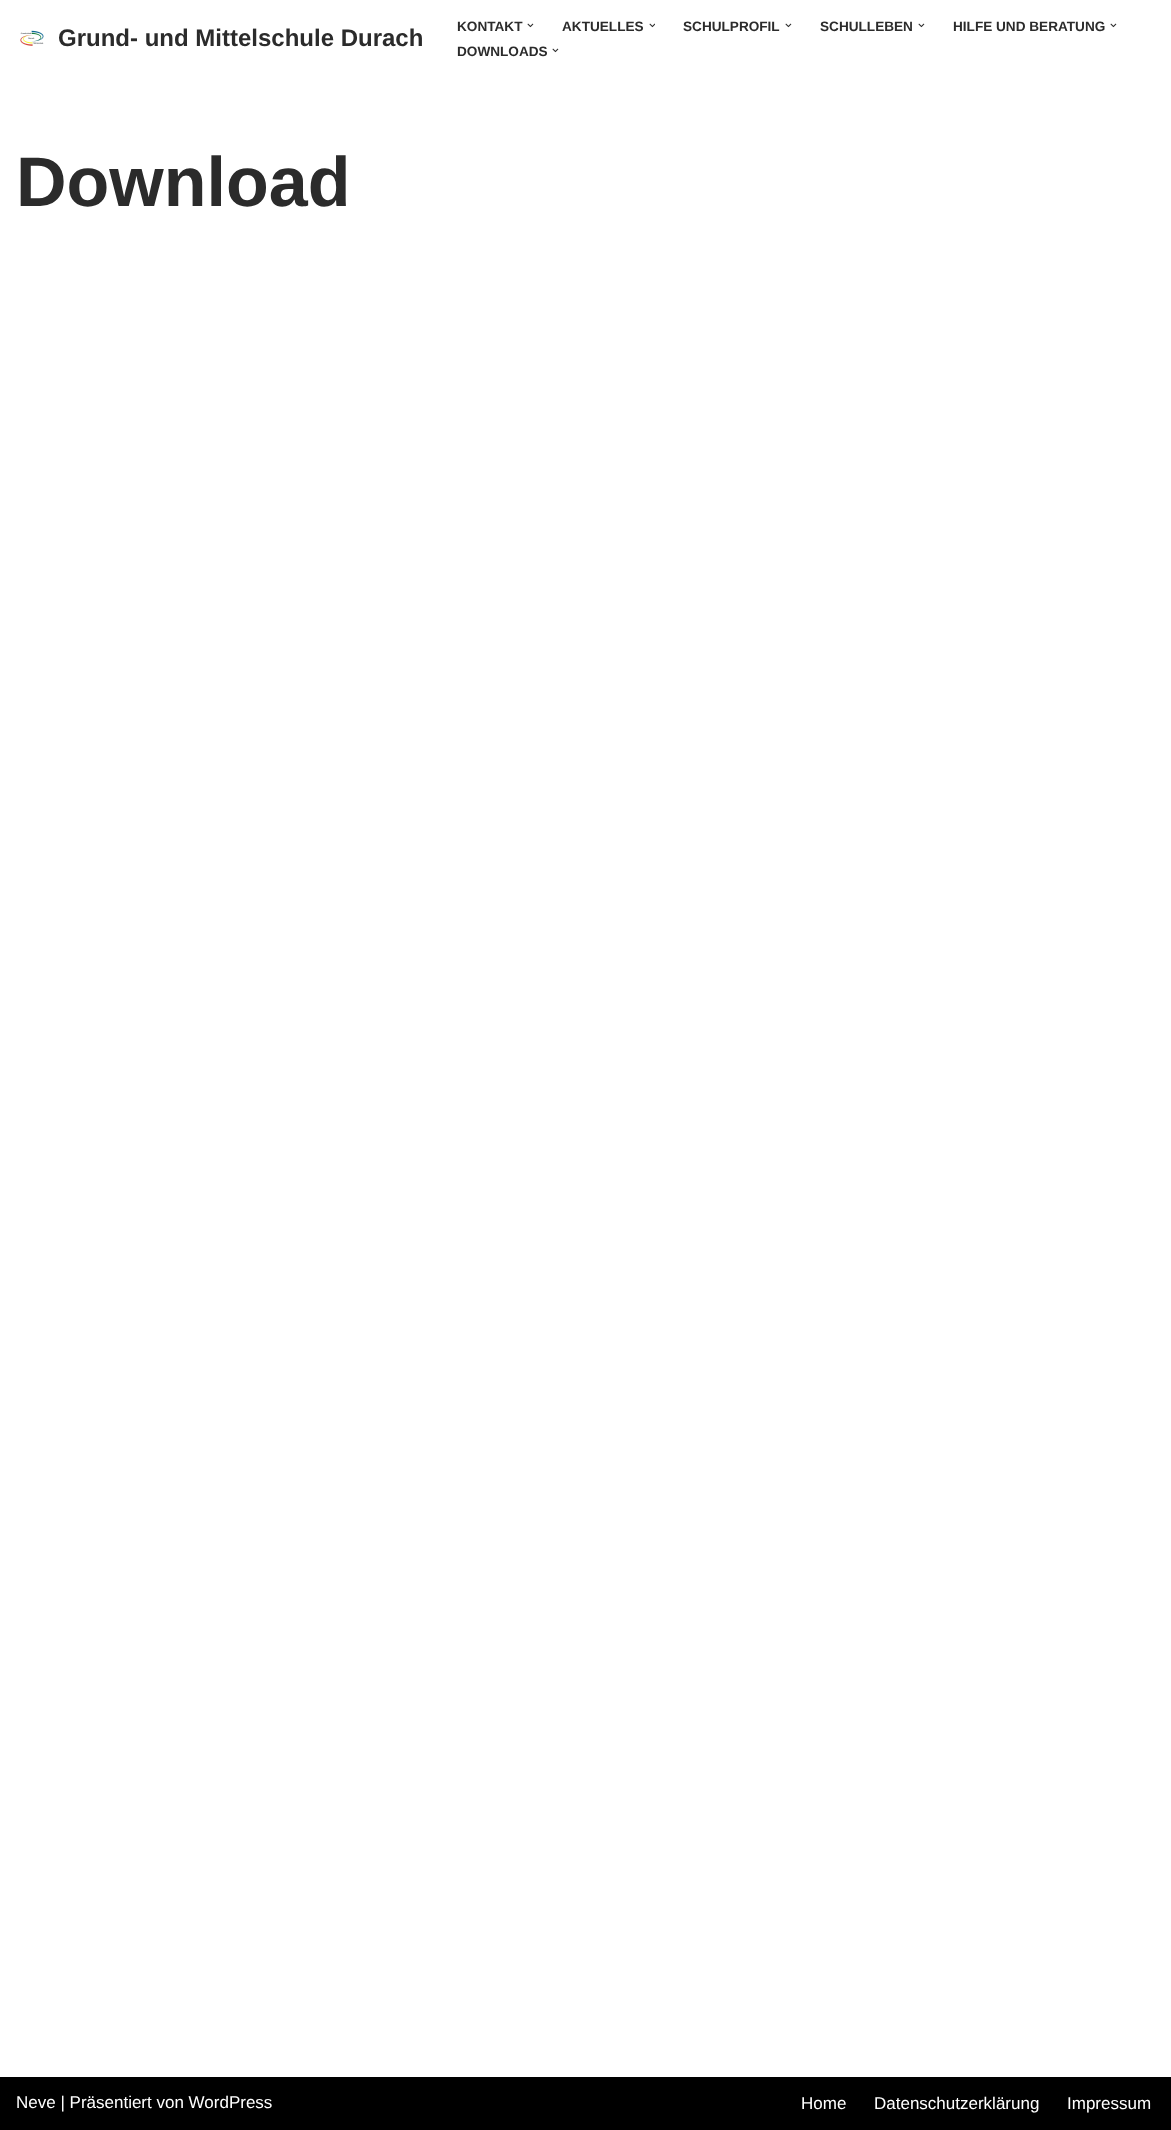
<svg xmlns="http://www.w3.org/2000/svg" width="1171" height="2130">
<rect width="100%" height="100%" fill="#fff"/>
<image x="20" y="30" width="24" height="16" href="media/1.png"/>
<text x="58" y="46" style="font-family:Liberation Sans;font-size:24px;font-weight:bold;fill:#2b2b2b">Grund- und Mittelschule Durach</text>
<text x="457" y="31" style="font-family:Liberation Sans;font-size:13.6px;font-weight:bold;fill:#2b2b2b">KONTAKT</text>
<image x="527" y="23" width="7" height="5" href="media/2.png"/>
<text x="562" y="31" style="font-family:Liberation Sans;font-size:13.6px;font-weight:bold;fill:#2b2b2b">AKTUELLES</text>
<image x="649" y="23" width="6" height="5" href="media/3.png"/>
<text x="683" y="31" style="font-family:Liberation Sans;font-size:13.6px;font-weight:bold;fill:#2b2b2b">SCHULPROFIL</text>
<image x="785" y="23" width="7" height="5" href="media/2.png"/>
<text x="820" y="31" style="font-family:Liberation Sans;font-size:13.6px;font-weight:bold;fill:#2b2b2b">SCHULLEBEN</text>
<image x="918" y="23" width="7" height="5" href="media/2.png"/>
<text x="953" y="31" style="font-family:Liberation Sans;font-size:13.6px;font-weight:bold;fill:#2b2b2b">HILFE UND BERATUNG</text>
<image x="1110" y="23" width="7" height="5" href="media/2.png"/>
<text x="457" y="56" style="font-family:Liberation Sans;font-size:13.6px;font-weight:bold;fill:#2b2b2b">DOWNLOADS</text>
<image x="552" y="48" width="7" height="5" href="media/2.png"/>
<text x="16" y="206" style="font-family:Liberation Sans;font-size:70px;font-weight:bold;fill:#2b2b2b">Download</text>
<rect y="2077" width="1171" height="53" fill="#000"/>
<text x="16" y="2108" style="font-family:Liberation Sans;font-size:17px;fill:#fff">Neve | Präsentiert von WordPress</text>
<text x="801" y="2109" style="font-family:Liberation Sans;font-size:17px;fill:#fff">Home</text>
<text x="874" y="2109" style="font-family:Liberation Sans;font-size:17px;fill:#fff">Datenschutzerklärung</text>
<text x="1067" y="2109" style="font-family:Liberation Sans;font-size:17px;fill:#fff">Impressum</text>
</svg>
